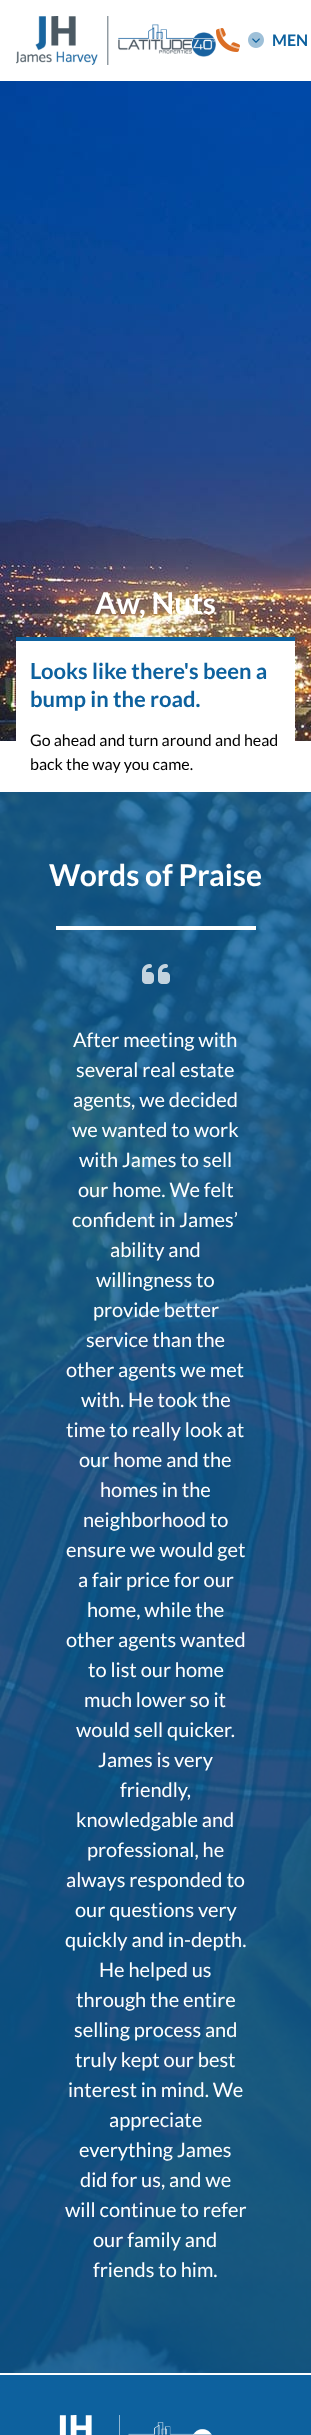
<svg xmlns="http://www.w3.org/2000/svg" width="311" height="2435">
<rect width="100%" height="100%" fill="#fff"/>
<image x="16" y="16" width="200" height="49" href="media/1.png"/>
<image x="216" y="28" width="24" height="24" href="media/2.png"/>
<image x="248" y="32" width="16" height="16" href="media/3.png"/>
<text x="272" y="46" style="font-family:Lato;font-size:16px;font-weight:bold;fill:#0d619e">MEN</text>
<image x="0" y="81" width="311" height="660" href="media/4.png"/>
<rect x="16" y="637" width="279" height="4" fill="#0d619e"/>
<text x="95" y="614" style="font-family:Lato;font-size:30px;font-weight:bold;fill:#fff">Aw, Nuts</text>
<rect x="16" y="641" width="279" height="100" fill="#fff"/>
<text x="30" y="679" style="font-family:Lato;font-size:22px;font-weight:bold;fill:#0d619e">Looks like there's been a</text>
<text x="30" y="707" style="font-family:Lato;font-size:22px;font-weight:bold;fill:#0d619e">bump in the road.</text>
<text x="30" y="746" style="font-family:Lato;font-size:16px;fill:#000">Go ahead and turn around and head</text>
<text x="30" y="770" style="font-family:Lato;font-size:16px;fill:#000">back the way you came.</text>
<image x="0" y="792" width="311" height="1581" href="media/5.png"/>
<text x="49" y="886" style="font-family:Lato;font-size:30px;font-weight:bold;fill:#fff">Words of Praise</text>
<rect x="56" y="926" width="200" height="4" fill="#fff"/>
<image x="142" y="964" width="28" height="20" href="media/6.png"/>
<text x="73" y="1047" style="font-family:Lato;font-size:20px;fill:#fff">After meeting with</text>
<text x="76" y="1077" style="font-family:Lato;font-size:20px;fill:#fff">several real estate</text>
<text x="73" y="1107" style="font-family:Lato;font-size:20px;fill:#fff">agents, we decided</text>
<text x="72" y="1137" style="font-family:Lato;font-size:20px;fill:#fff">we wanted to work</text>
<text x="79" y="1167" style="font-family:Lato;font-size:20px;fill:#fff">with James to sell</text>
<text x="78" y="1197" style="font-family:Lato;font-size:20px;fill:#fff">our home. We felt</text>
<text x="72" y="1227" style="font-family:Lato;font-size:20px;fill:#fff">confident in James’</text>
<text x="110" y="1257" style="font-family:Lato;font-size:20px;fill:#fff">ability and</text>
<text x="96" y="1287" style="font-family:Lato;font-size:20px;fill:#fff">willingness to</text>
<text x="93" y="1317" style="font-family:Lato;font-size:20px;fill:#fff">provide better</text>
<text x="86" y="1347" style="font-family:Lato;font-size:20px;fill:#fff">service than the</text>
<text x="66" y="1377" style="font-family:Lato;font-size:20px;fill:#fff">other agents we met</text>
<text x="81" y="1407" style="font-family:Lato;font-size:20px;fill:#fff">with. He took the</text>
<text x="66" y="1437" style="font-family:Lato;font-size:20px;fill:#fff">time to really look at</text>
<text x="79" y="1467" style="font-family:Lato;font-size:20px;fill:#fff">our home and the</text>
<text x="100" y="1497" style="font-family:Lato;font-size:20px;fill:#fff">homes in the</text>
<text x="83" y="1527" style="font-family:Lato;font-size:20px;fill:#fff">neighborhood to</text>
<text x="66" y="1557" style="font-family:Lato;font-size:20px;fill:#fff">ensure we would get</text>
<text x="78" y="1587" style="font-family:Lato;font-size:20px;fill:#fff">a fair price for our</text>
<text x="87" y="1617" style="font-family:Lato;font-size:20px;fill:#fff">home, while the</text>
<text x="66" y="1647" style="font-family:Lato;font-size:20px;fill:#fff">other agents wanted</text>
<text x="88" y="1677" style="font-family:Lato;font-size:20px;fill:#fff">to list our home</text>
<text x="84" y="1707" style="font-family:Lato;font-size:20px;fill:#fff">much lower so it</text>
<text x="76" y="1737" style="font-family:Lato;font-size:20px;fill:#fff">would sell quicker.</text>
<text x="98" y="1767" style="font-family:Lato;font-size:20px;fill:#fff">James is very</text>
<text x="120" y="1797" style="font-family:Lato;font-size:20px;fill:#fff">friendly,</text>
<text x="76" y="1827" style="font-family:Lato;font-size:20px;fill:#fff">knowledgable and</text>
<text x="87" y="1857" style="font-family:Lato;font-size:20px;fill:#fff">professional, he</text>
<text x="66" y="1887" style="font-family:Lato;font-size:20px;fill:#fff">always responded to</text>
<text x="75" y="1917" style="font-family:Lato;font-size:20px;fill:#fff">our questions very</text>
<text x="65" y="1947" style="font-family:Lato;font-size:20px;fill:#fff">quickly and in-depth.</text>
<text x="99" y="1977" style="font-family:Lato;font-size:20px;fill:#fff">He helped us</text>
<text x="76" y="2007" style="font-family:Lato;font-size:20px;fill:#fff">through the entire</text>
<text x="74" y="2037" style="font-family:Lato;font-size:20px;fill:#fff">selling process and</text>
<text x="75" y="2067" style="font-family:Lato;font-size:20px;fill:#fff">truly kept our best</text>
<text x="68" y="2097" style="font-family:Lato;font-size:20px;fill:#fff">interest in mind. We</text>
<text x="109" y="2127" style="font-family:Lato;font-size:20px;fill:#fff">appreciate</text>
<text x="79" y="2157" style="font-family:Lato;font-size:20px;fill:#fff">everything James</text>
<text x="80" y="2187" style="font-family:Lato;font-size:20px;fill:#fff">did for us, and we</text>
<text x="65" y="2217" style="font-family:Lato;font-size:20px;fill:#fff">will continue to refer</text>
<text x="93" y="2247" style="font-family:Lato;font-size:20px;fill:#fff">our family and</text>
<text x="93" y="2277" style="font-family:Lato;font-size:20px;fill:#fff">friends to him.</text>
<rect y="2375" width="311" height="60" fill="#0d619e"/>
<image x="59" y="2415" width="153" height="20" href="media/7.png"/>
</svg>
